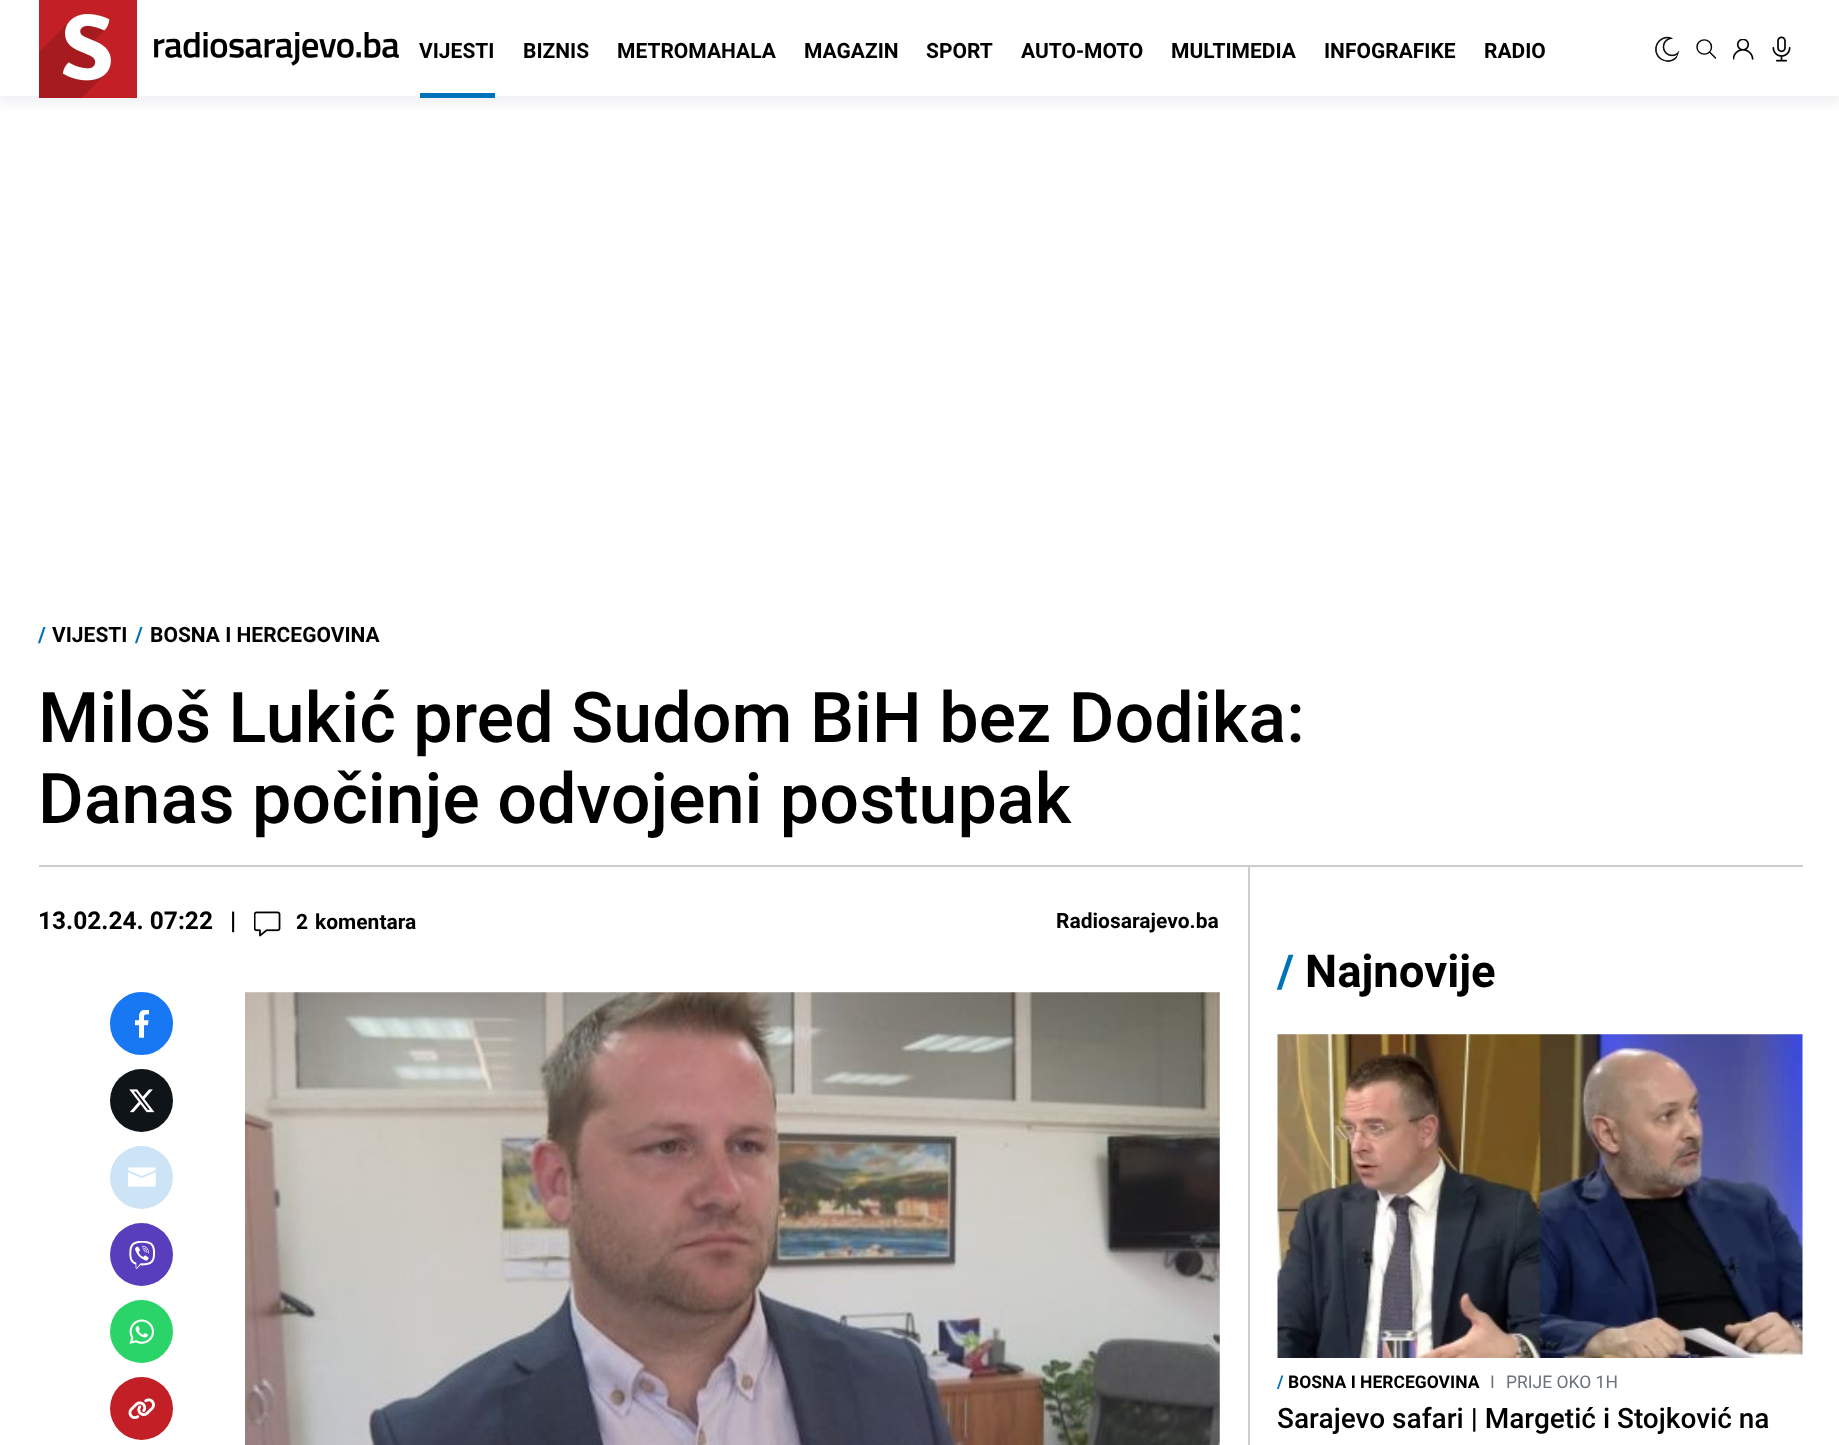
<svg xmlns="http://www.w3.org/2000/svg" width="1839" height="1445">
<defs>
<clipPath id="clip1"><rect x="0" y="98" width="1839" height="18"/></clipPath>
</defs>
<rect width="100%" height="100%" fill="#fff"/>
<g clip-path="url(#clip1)">
<rect y="4" width="1839" height="98" fill="#ecedf0" filter="blur(7px)"/>
</g>
<rect y="96" width="1839" height="2" fill="#f3f3f5"/>
<rect x="39" width="98" height="98" fill="#c22026"/>
<image x="39" y="14" width="72" height="84" href="media/1.png"/>
<image x="154" y="32" width="245" height="34" href="media/2.png"/>
<text x="419" y="58" style="font-family:Roboto;font-size:21px;font-weight:bold;fill:#000">VIJESTI</text>
<rect x="420" y="93" width="75" height="5" fill="#0072bb"/>
<text x="523" y="58" style="font-family:Roboto;font-size:21px;font-weight:bold;fill:#000">BIZNIS</text>
<text x="617" y="58" style="font-family:Roboto;font-size:21px;font-weight:bold;fill:#000">METROMAHALA</text>
<text x="804" y="58" style="font-family:Roboto;font-size:21px;font-weight:bold;fill:#000">MAGAZIN</text>
<text x="926" y="58" style="font-family:Roboto;font-size:21px;font-weight:bold;fill:#000">SPORT</text>
<text x="1021" y="58" style="font-family:Roboto;font-size:21px;font-weight:bold;fill:#000">AUTO-MOTO</text>
<text x="1171" y="58" style="font-family:Roboto;font-size:21px;font-weight:bold;fill:#000">MULTIMEDIA</text>
<text x="1324" y="58" style="font-family:Roboto;font-size:21px;font-weight:bold;fill:#000">INFOGRAFIKE</text>
<text x="1484" y="58" style="font-family:Roboto;font-size:21px;font-weight:bold;fill:#000">RADIO</text>
<image x="1655" y="36" width="25" height="26" href="media/3.png"/>
<path d="M1715.5 58l-6-6m2-5c0 9.5-14.5 9.5-14.5 0c0-9.5 14.5-9.5 14.5 0z" fill="none" stroke="#000" stroke-width="1.4" stroke-linecap="round" stroke-linejoin="round"/>
<image x="1733" y="39" width="21" height="21" href="media/4.png"/>
<image x="1772" y="36" width="19" height="26" href="media/5.png"/>
<text x="38" y="642" style="font-family:Roboto;font-size:21px;font-weight:bold;fill:#0072bb">/</text>
<text x="52" y="642" style="font-family:Roboto;font-size:21px;font-weight:bold;fill:#000">VIJESTI</text>
<text x="135" y="642" style="font-family:Roboto;font-size:21px;font-weight:bold;fill:#0072bb">/</text>
<text x="150" y="642" style="font-family:Roboto;font-size:21px;font-weight:bold;fill:#000">BOSNA I HERCEGOVINA</text>
<text x="38" y="742" style="font-family:Roboto;font-size:70px;font-weight:500;fill:#000">Miloš Lukić pred Sudom BiH bez Dodika:</text>
<text x="38" y="823" style="font-family:Roboto;font-size:70px;font-weight:500;fill:#000">Danas počinje odvojeni postupak</text>
<rect x="39" y="865" width="1764" height="2" fill="#ccc"/>
<rect x="1248" y="866" width="2" height="579" fill="#ccc"/>
<text x="38" y="929" style="font-family:Roboto;font-size:24.5px;font-weight:bold;fill:#000">13.02.24. 07:22</text>
<text x="230" y="929" style="font-family:Roboto;font-size:24.5px;font-weight:bold;fill:#000">|</text>
<image x="254" y="911" width="27" height="26" href="media/6.png"/>
<text x="296" y="929" style="font-family:Roboto;font-size:21px;font-weight:bold;fill:#000">2</text>
<text x="315" y="929" style="font-family:Roboto;font-size:21px;font-weight:bold;fill:#000">komentara</text>
<text x="1056" y="928" style="font-family:Roboto;font-size:21px;font-weight:bold;fill:#000">Radiosarajevo.ba</text>
<circle cx="141.5" cy="1023.5" r="30.5" fill="#1877f2" stroke="#1877f2" stroke-width="2"/>
<image x="134" y="1010" width="15" height="28" href="media/7.png"/>
<circle cx="141.5" cy="1100.5" r="31.5" fill="#0f1419"/>
<image x="129" y="1089" width="26" height="24" href="media/8.png"/>
<circle cx="141.5" cy="1177.5" r="31.5" fill="#cce4f6"/>
<image x="128" y="1167" width="28" height="20" href="media/9.png"/>
<circle cx="141.5" cy="1254.5" r="31.5" fill="#583ebc"/>
<image x="129" y="1241" width="26" height="28" href="media/10.png"/>
<circle cx="141.5" cy="1331.5" r="31.5" fill="#2ad469"/>
<image x="129" y="1319" width="25" height="25" href="media/11.png"/>
<circle cx="141.5" cy="1408.5" r="31.5" fill="#c22026"/>
<image x="128" y="1398" width="27" height="21" href="media/12.png"/>
<rect x="245" y="992" width="975" height="453" fill="#fafafa"/>
<image x="245" y="992" width="975" height="453" href="media/13.png"/>
<text x="1277" y="987" style="font-family:Roboto;font-size:45.5px;font-weight:bold;fill:#0072bb">/</text>
<text x="1305" y="987" style="font-family:Roboto;font-size:45.5px;font-weight:bold;fill:#000">Najnovije</text>
<rect x="1278" y="1034" width="525" height="324" fill="#fafafa"/>
<image x="1277" y="1034" width="526" height="324" href="media/14.png"/>
<text x="1277" y="1388" style="font-family:Roboto;font-size:17.5px;font-weight:bold;fill:#0072bb">/</text>
<text x="1288" y="1388" style="font-family:Roboto;font-size:17.5px;font-weight:bold;fill:#000">BOSNA I HERCEGOVINA</text>
<text x="1490" y="1388" style="font-family:Roboto;font-size:17.5px;fill:#69737b">I</text>
<text x="1506" y="1388" style="font-family:Roboto;font-size:17.5px;fill:#69737b">PRIJE OKO 1H</text>
<text x="1277" y="1428" style="font-family:Roboto;font-size:28px;font-weight:500;fill:#000">Sarajevo safari | Margetić i Stojković na</text>
</svg>
